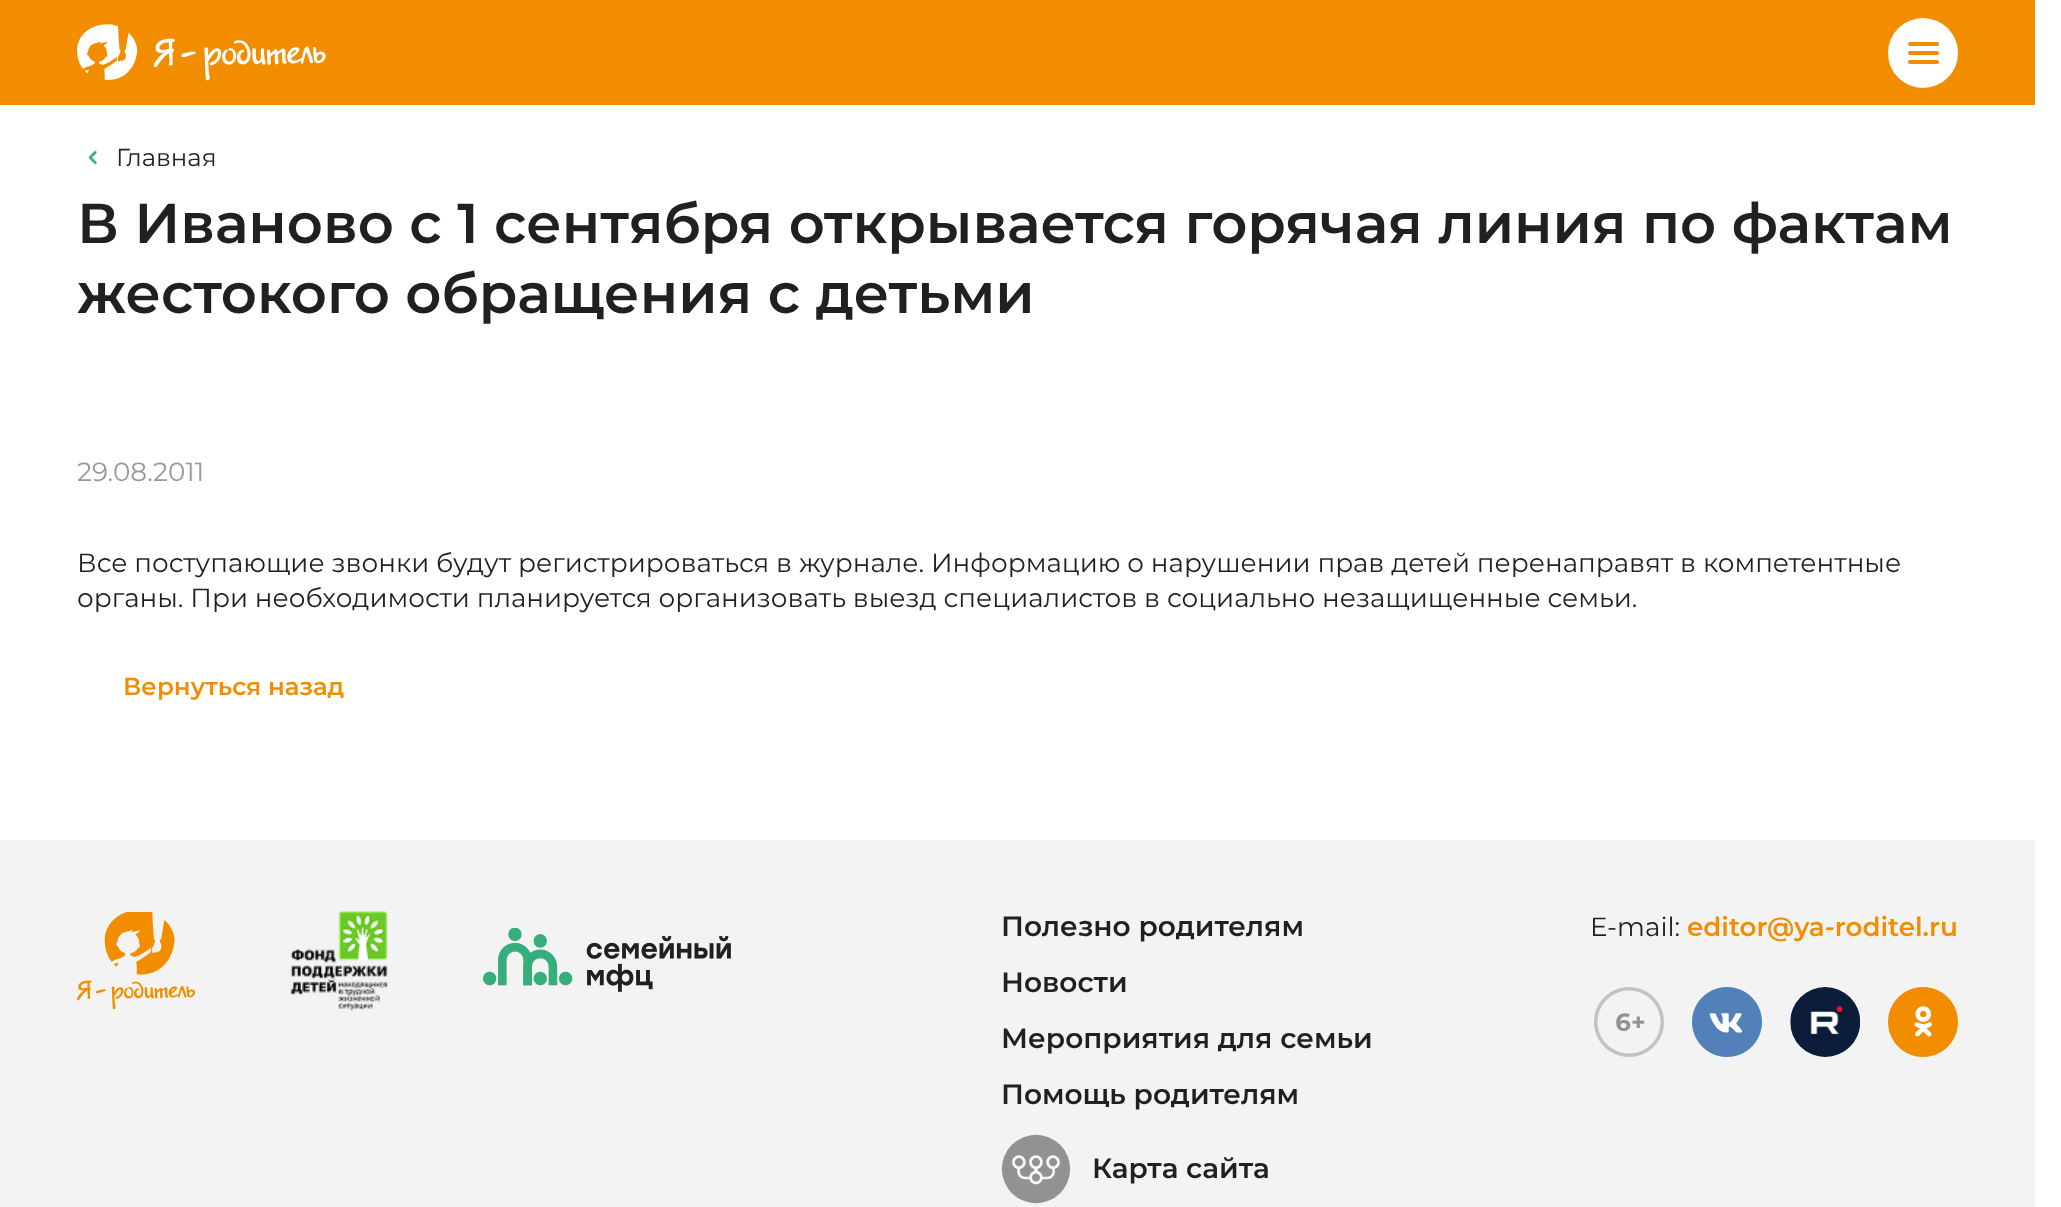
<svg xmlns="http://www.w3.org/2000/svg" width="2061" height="1207">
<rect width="100%" height="100%" fill="#fff"/>
<rect width="2035" height="105" fill="#f28d00"/>
<image x="77" y="24" width="249" height="57" href="media/1.png"/>
<circle cx="1923" cy="53" r="35" fill="#fff"/>
<rect x="1908" y="42" width="31" height="4" rx="2" fill="#f28d00"/>
<rect x="1908" y="51" width="31" height="4" rx="2" fill="#f28d00"/>
<rect x="1908" y="60" width="31" height="4" rx="2" fill="#f28d00"/>
<image x="88" y="150" width="9" height="15" href="media/2.png"/>
<text x="116" y="166" style="font-family:Montserrat;font-size:24.5px;fill:#211f1f">Главная</text>
<text x="77" y="243" style="font-family:Montserrat;font-size:56px;font-weight:600;fill:#211f1f">В Иваново с 1 сентября открывается горячая линия по фактам</text>
<text x="77" y="313" style="font-family:Montserrat;font-size:56px;font-weight:600;fill:#211f1f">жестокого обращения с детьми</text>
<text x="77" y="481" style="font-family:Montserrat;font-size:26.25px;fill:#999">29.08.2011</text>
<text x="77" y="572" style="font-family:Montserrat;font-size:26.25px;fill:#211f1f">Все поступающие звонки будут регистрироваться в журнале. Информацию о нарушении прав детей перенаправят в компетентные</text>
<text x="77" y="607" style="font-family:Montserrat;font-size:26.25px;fill:#211f1f">органы. При необходимости планируется организовать выезд специалистов в социально незащищенные семьи.</text>
<text x="123" y="695" style="font-family:Montserrat;font-size:24.5px;font-weight:600;fill:#f28d00">Вернуться назад</text>
<rect y="840" width="2035" height="367" fill="#f3f3f3"/>
<image x="77" y="912" width="119" height="98" href="media/3.png"/>
<image x="290" y="911" width="98" height="100" href="media/4.png"/>
<image x="483" y="928" width="248" height="64" href="media/5.png"/>
<text x="1001" y="936" style="font-family:Montserrat;font-size:28px;font-weight:600;fill:#211f1f">Полезно родителям</text>
<text x="1001" y="992" style="font-family:Montserrat;font-size:28px;font-weight:600;fill:#211f1f">Новости</text>
<text x="1001" y="1048" style="font-family:Montserrat;font-size:28px;font-weight:600;fill:#211f1f">Мероприятия для семьи</text>
<text x="1001" y="1104" style="font-family:Montserrat;font-size:28px;font-weight:600;fill:#211f1f">Помощь родителям</text>
<image x="1001" y="1134" width="70" height="70" href="media/6.png"/>
<text x="1092" y="1178" style="font-family:Montserrat;font-size:28px;font-weight:600;fill:#211f1f">Карта сайта</text>
<text x="1590" y="936" style="font-family:Montserrat;font-size:26.25px;fill:#211f1f">E-mail:</text>
<text x="1687" y="936" style="font-family:Montserrat;font-size:26.25px;font-weight:600;fill:#f28d00">editor@ya-roditel.ru</text>
<image x="1594" y="987" width="70" height="70" href="media/7.png"/>
<image x="1692" y="987" width="70" height="70" href="media/8.png"/>
<image x="1790" y="987" width="70" height="70" href="media/9.png"/>
<image x="1888" y="987" width="70" height="70" href="media/10.png"/>
</svg>
